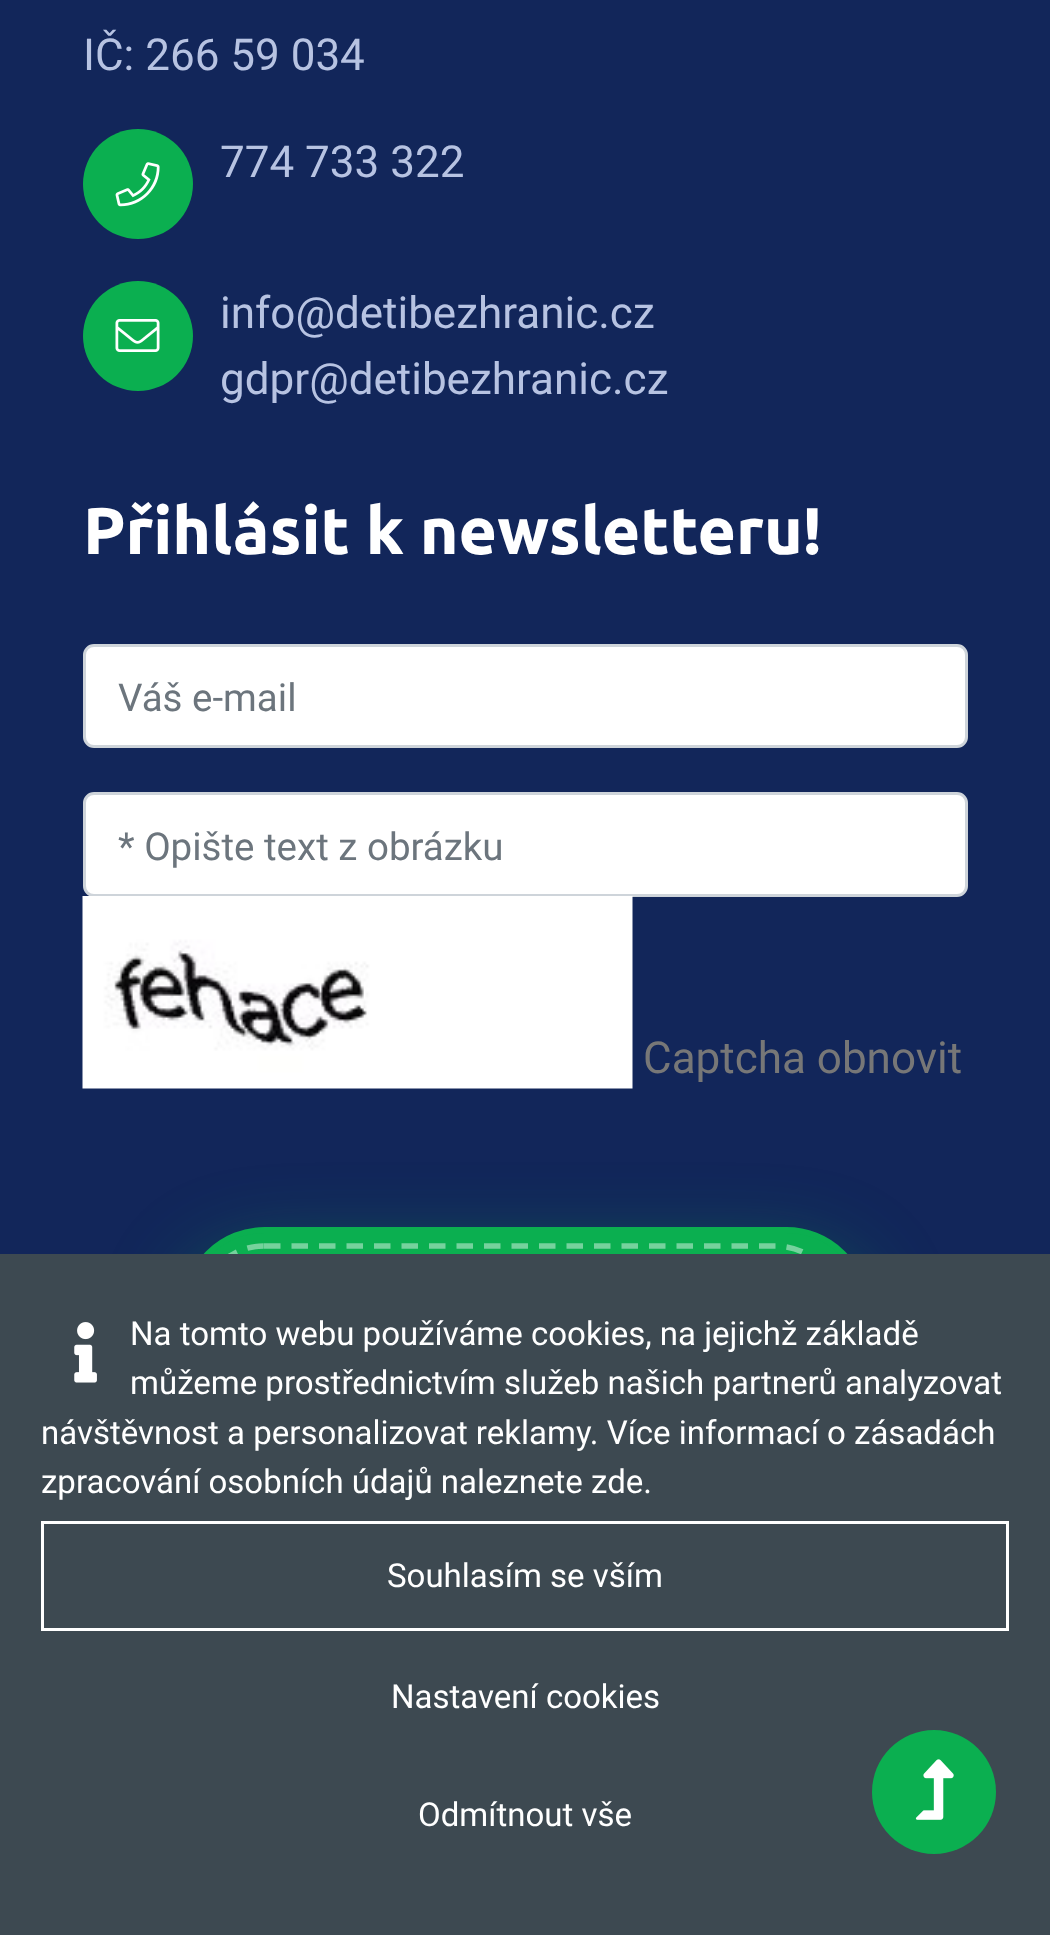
<svg xmlns="http://www.w3.org/2000/svg" width="1050" height="1935">
<rect width="100%" height="100%" fill="#12265a"/>
<text x="83" y="70" style="font-family:Roboto;font-size:44px;fill:#b7c3e2">IČ: 266 59 034</text>
<circle cx="138" cy="184" r="55" fill="#0baf50"/>
<image x="115" y="162" width="45" height="45" href="media/1.png"/>
<text x="220" y="177" style="font-family:Roboto;font-size:44px;fill:#b7c3e2">774 733 322</text>
<circle cx="138" cy="336" r="55" fill="#0baf50"/>
<image x="115" y="319" width="45" height="33" href="media/2.png"/>
<text x="220" y="328" style="font-family:Roboto;font-size:44px;fill:#b7c3e2">info@detibezhranic.cz</text>
<text x="220" y="394" style="font-family:Roboto;font-size:44px;fill:#b7c3e2">gdpr@detibezhranic.cz</text>
<text x="83" y="554" style="font-family:Ubuntu;font-size:66px;font-weight:bold;fill:#fff">Přihlásit k newsletteru!</text>
<rect x="84.5" y="645.5" width="882" height="101" rx="9.5" fill="#fff" stroke="#ced4da" stroke-width="3"/>
<text x="118" y="711" style="font-family:Roboto;font-size:38.5px;fill:#6c757d">Váš e-mail</text>
<rect x="84.5" y="793.5" width="882" height="102" rx="9.5" fill="#fff" stroke="#ced4da" stroke-width="3"/>
<text x="118" y="860" style="font-family:Roboto;font-size:38.5px;fill:#6c757d">* Opište text z obrázku</text>
<image x="82" y="896" width="551" height="193" href="media/3.png"/>
<text x="643" y="1073" style="font-family:Roboto;font-size:44px;fill:#777">Captcha obnovit</text>
<rect x="182" y="1254" width="687" height="165" rx="82.5" fill="#0baf5066" filter="blur(41px)"/>
<rect x="185" y="1230" width="681" height="159" rx="79.5" fill="#0baf50" stroke="#0baf50" stroke-width="6"/>
<path d="M264 1246h511.5c35 0 63.5 28 63.5 63c0 35-28.5 63-63.5 63h-511.5c-35 0-63-28-63-63c0-35 28-63 63-63z" fill="none" stroke="#76d29d" stroke-width="5.5" stroke-dasharray="16.5 11"/>
<rect y="1254" width="1050" height="681" fill="#3d4951"/>
<text x="130" y="1345" style="font-family:Roboto;font-size:33px;fill:#fff">Na tomto webu používáme cookies, na jejichž základě</text>
<text x="130" y="1394" style="font-family:Roboto;font-size:33px;fill:#fff">můžeme prostřednictvím služeb našich partnerů analyzovat</text>
<text x="41" y="1444" style="font-family:Roboto;font-size:33px;fill:#fff">návštěvnost a personalizovat reklamy. Více informací o zásadách</text>
<text x="41" y="1493" style="font-family:Roboto;font-size:33px;fill:#fff">zpracování osobních údajů naleznete zde.</text>
<image x="74" y="1322" width="23" height="61" href="media/4.png"/>
<rect x="42.5" y="1522.5" width="965" height="107" fill="none" stroke="#fff" stroke-width="3"/>
<text x="387" y="1587" style="font-family:Roboto;font-size:33px;fill:#fff">Souhlasím se vším</text>
<text x="391" y="1708" style="font-family:Roboto;font-size:33px;fill:#fff">Nastavení cookies</text>
<text x="418" y="1826" style="font-family:Roboto;font-size:33px;fill:#fff">Odmítnout vše</text>
<circle cx="934" cy="1792" r="62" fill="#0baf50"/>
<image x="915" y="1759" width="39" height="61" href="media/5.png"/>
</svg>
